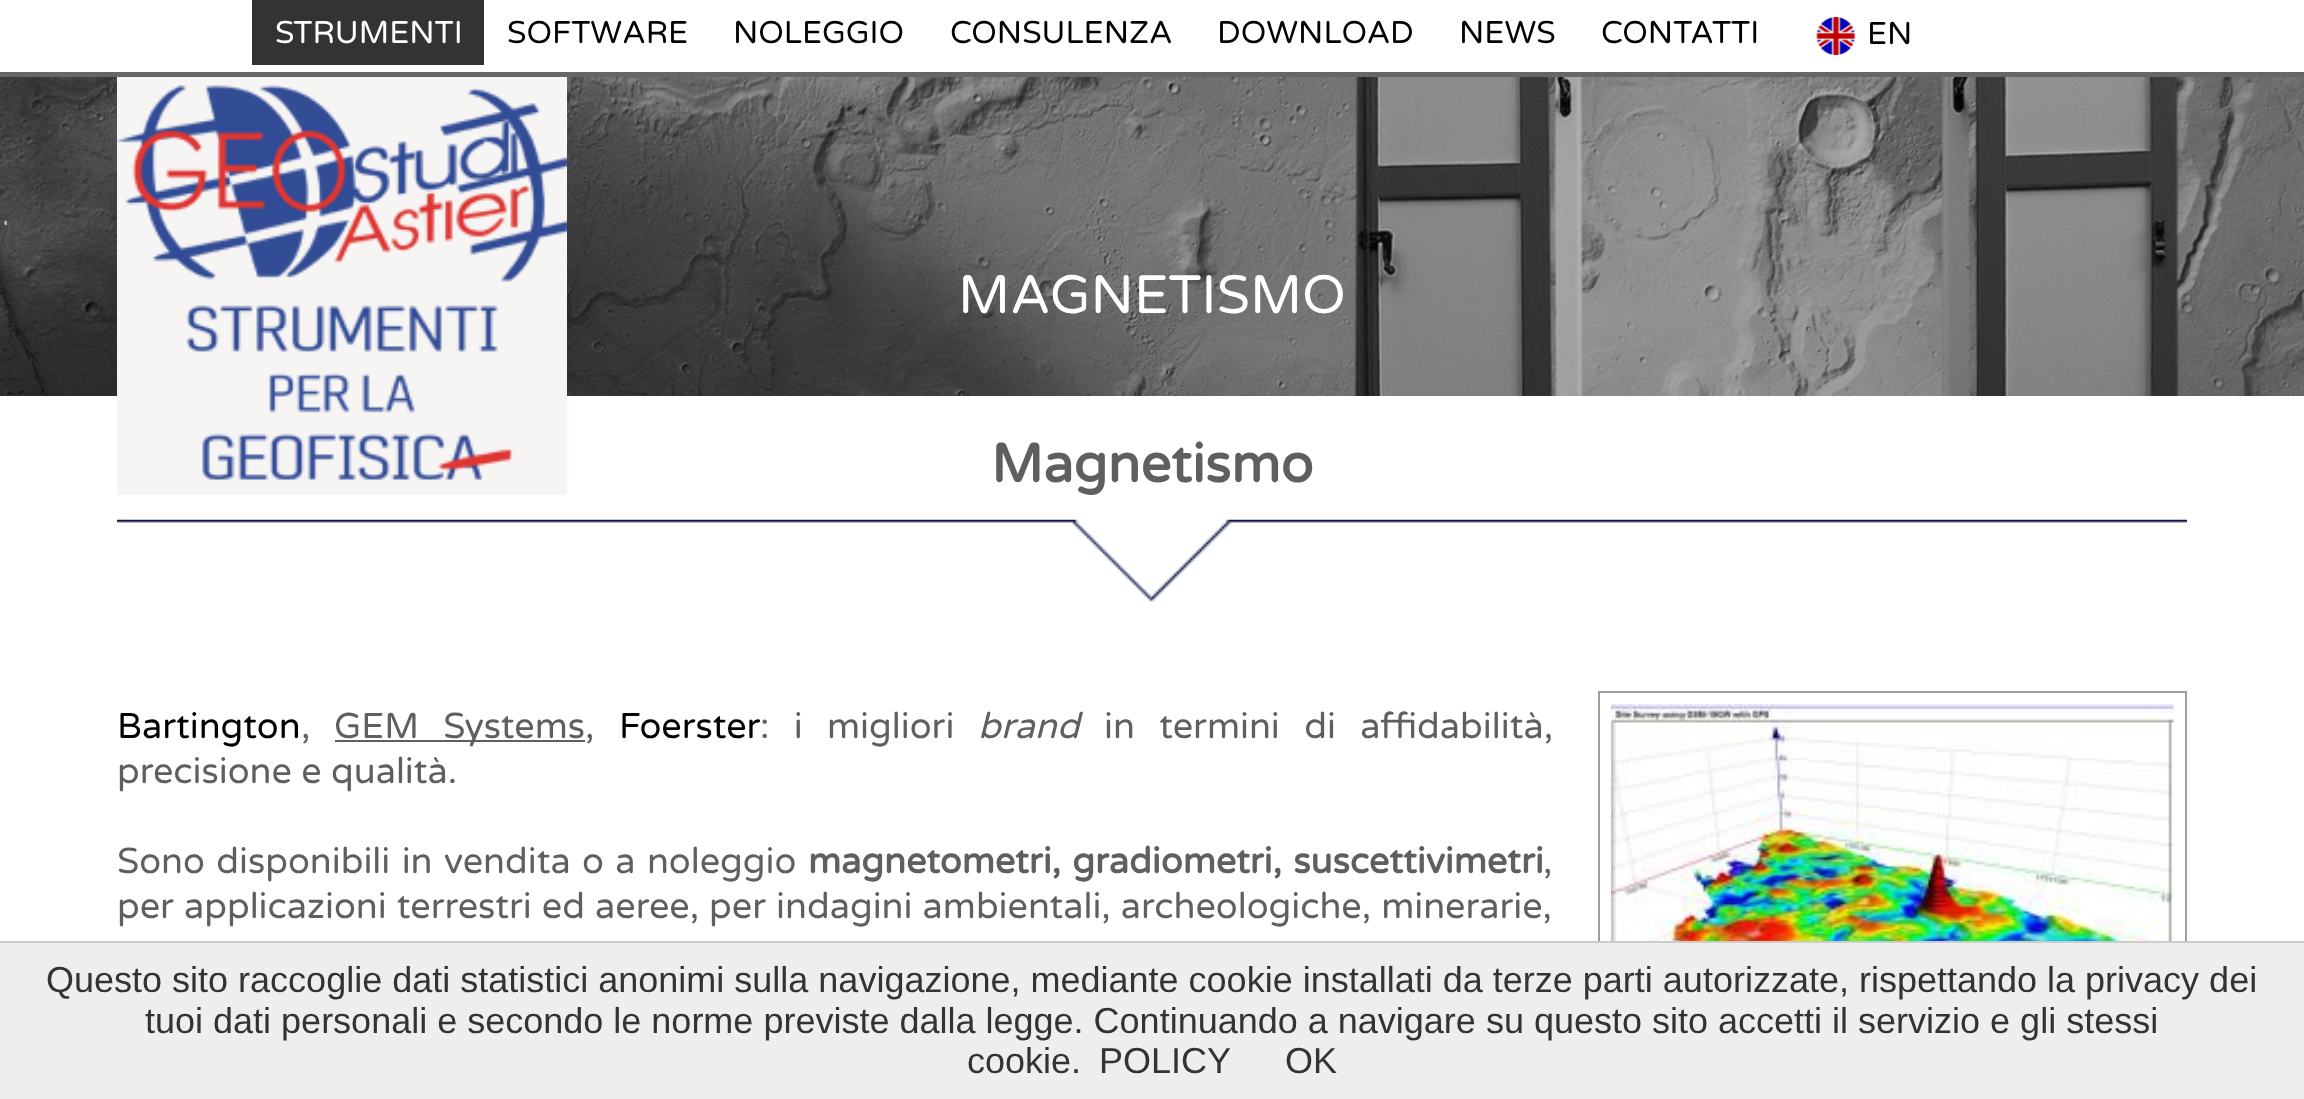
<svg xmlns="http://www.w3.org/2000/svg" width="2304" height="1099">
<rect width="100%" height="100%" fill="#fff"/>
<rect y="72" width="2304" height="5" fill="#666"/>
<rect x="252" width="232" height="65" fill="#333"/>
<text x="275" y="43" style="font-family:Varela Round;font-size:31.5px;fill:#fff">STRUMENTI</text>
<text x="507" y="43" style="font-family:Varela Round;font-size:31.5px;fill:#000">SOFTWARE</text>
<text x="733" y="43" style="font-family:Varela Round;font-size:31.5px;fill:#000">NOLEGGIO</text>
<text x="950" y="43" style="font-family:Varela Round;font-size:31.5px;fill:#000">CONSULENZA</text>
<text x="1217" y="43" style="font-family:Varela Round;font-size:31.5px;fill:#000">DOWNLOAD</text>
<text x="1459" y="43" style="font-family:Varela Round;font-size:31.5px;fill:#000">NEWS</text>
<text x="1601" y="43" style="font-family:Varela Round;font-size:31.5px;fill:#000">CONTATTI</text>
<image x="1815" y="17" width="41" height="38" href="media/1.png"/>
<text x="1867" y="44" style="font-family:Varela Round;font-size:31.5px;fill:#000">EN</text>
<image x="0" y="77" width="2304" height="319" href="media/3.png"/>
<image x="117" y="77" width="450" height="418" href="media/2.png"/>
<text x="958" y="313" style="font-family:Varela Round;font-size:54px;fill:#fff">MAGNETISMO</text>
<image x="4" y="220" width="3" height="6" href="media/4.png"/>
<circle cx="6" cy="222" r="1" fill="#b1b2b4"/>
<rect x="5" y="223" width="2" height="2" fill="#b1b2b4"/>
<image x="117" y="519" width="2070" height="83" href="media/5.png"/>
<text x="991" y="482" style="font-family:Varela Round;font-size:54px;font-weight:bold;fill:#5f5f5f">Magnetismo</text>
<text x="117" y="738" style="font-family:Varela Round;font-size:36px;fill:#000">Bartington</text>
<text x="301" y="738" style="font-family:Varela Round;font-size:36px;fill:#5f5f5f">,</text>
<rect x="335" y="740" width="250" height="2" fill="#5f5f5f"/>
<text x="334" y="738" word-spacing="15" style="font-family:Varela Round;font-size:36px;fill:#5f5f5f">GEM Systems</text>
<text x="585" y="738" style="font-family:Varela Round;font-size:36px;fill:#5f5f5f">,</text>
<text x="619" y="738" style="font-family:Varela Round;font-size:36px;fill:#000">Foerster</text>
<text x="760" y="738" word-spacing="15" style="font-family:Varela Round;font-size:36px;fill:#5f5f5f">: i migliori</text>
<text x="978" y="738" style="font-family:Varela Round;font-size:36px;font-style:italic;fill:#5f5f5f">brand</text>
<text x="1104" y="738" word-spacing="15" style="font-family:Varela Round;font-size:36px;fill:#5f5f5f">in termini di affidabilità,</text>
<text x="117" y="783" style="font-family:Varela Round;font-size:36px;fill:#5f5f5f">precisione e qualità.</text>
<text x="117" y="873" word-spacing="2" style="font-family:Varela Round;font-size:36px;fill:#5f5f5f">Sono disponibili in vendita o a noleggio</text>
<text x="808" y="873" word-spacing="2" style="font-family:Varela Round;font-size:36px;font-weight:bold;fill:#5f5f5f">magnetometri, gradiometri, suscettivimetri</text>
<text x="1543" y="873" style="font-family:Varela Round;font-size:36px;fill:#5f5f5f">,</text>
<text x="117" y="918" word-spacing="0.75" style="font-family:Varela Round;font-size:36px;fill:#5f5f5f">per applicazioni terrestri ed aeree, per indagini ambientali, archeologiche, minerarie,</text>
<rect x="1599" y="692" width="587" height="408" fill="none" stroke="#9f9fa0" stroke-width="2"/>
<image x="1611" y="704" width="563" height="237" href="media/6.png"/>
<rect y="943" width="2304" height="156" fill="#eee"/>
<rect y="941" width="2304" height="2" fill="#ccc"/>
<text x="46" y="992" style="font-family:Liberation Sans;font-size:36px;fill:#333">Questo sito raccoglie dati statistici anonimi sulla navigazione, mediante cookie installati da terze parti autorizzate, rispettando la privacy dei</text>
<text x="145" y="1033" style="font-family:Liberation Sans;font-size:36px;fill:#333">tuoi dati personali e secondo le norme previste dalla legge. Continuando a navigare su questo sito accetti il servizio e gli stessi</text>
<text x="967" y="1073" style="font-family:Liberation Sans;font-size:36px;fill:#333">cookie.</text>
<text x="1099" y="1073" style="font-family:Liberation Sans;font-size:36px;fill:#333">POLICY</text>
<text x="1285" y="1073" style="font-family:Liberation Sans;font-size:36px;fill:#333">OK</text>
</svg>
